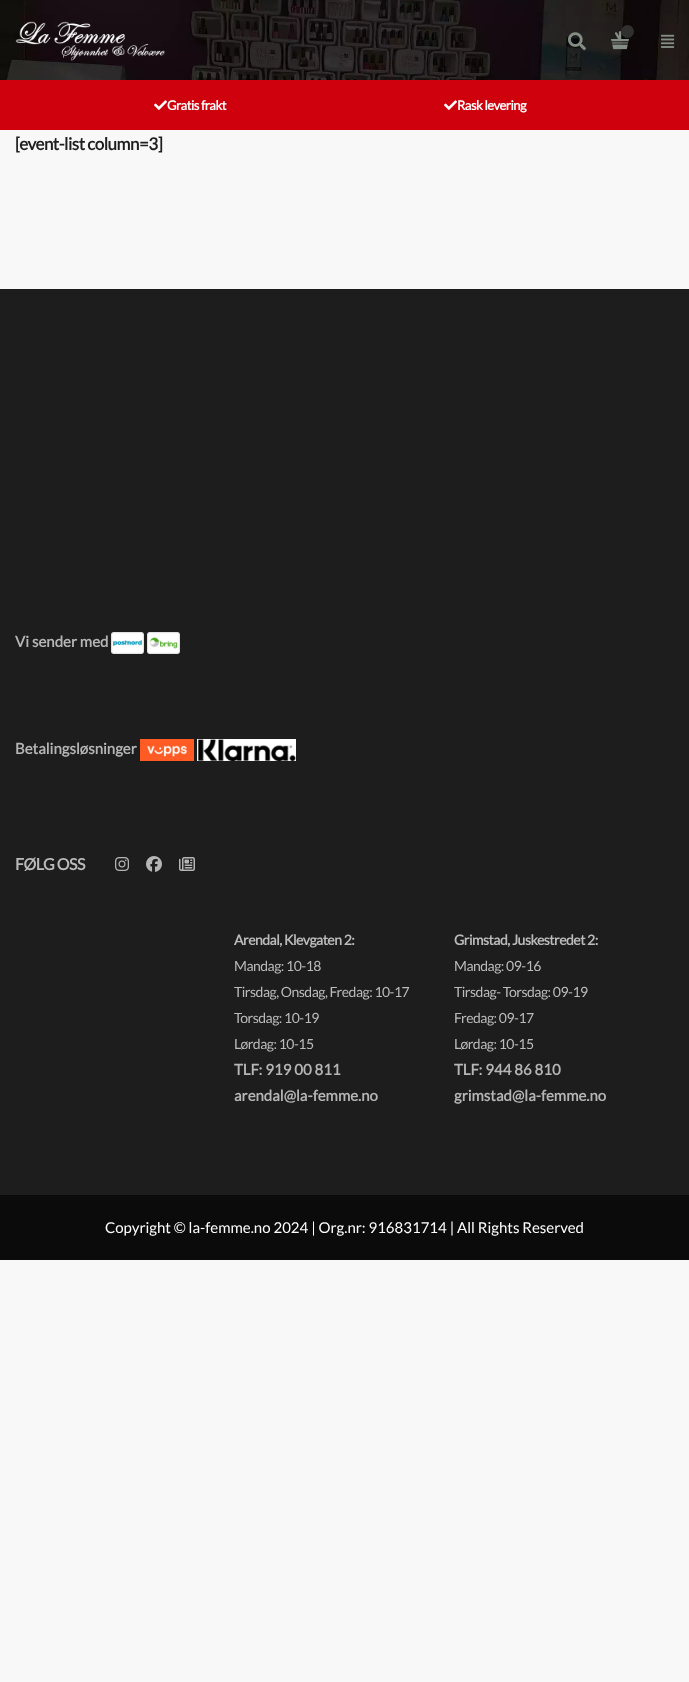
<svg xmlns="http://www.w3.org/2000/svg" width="689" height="1682">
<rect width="100%" height="100%" fill="#f8f8f8"/>
<image x="0" y="0" width="689" height="80" href="media/1.png"/>
<image x="15" y="21" width="150" height="40" href="media/2.png"/>
<image x="568" y="32" width="18" height="19" href="media/3.png"/>
<image x="611" y="31" width="18" height="19" href="media/4.png"/>
<circle cx="627.5" cy="31.5" r="6.5" fill="#303030"/>
<image x="661" y="34" width="14" height="14" href="media/5.png"/>
<rect y="80" width="689" height="50" fill="#cf010d"/>
<image x="154" y="100" width="13" height="10" href="media/6.png"/>
<text x="167" y="110" style="font-family:Lato;font-size:13px;font-weight:bold;letter-spacing:-0.5px;fill:#fff">Gratis frakt</text>
<image x="444" y="100" width="13" height="10" href="media/6.png"/>
<text x="457" y="110" style="font-family:Lato;font-size:13px;font-weight:bold;letter-spacing:-0.5px;fill:#fff">Rask levering</text>
<text x="15" y="150" style="font-family:Lato;font-size:17px;font-weight:bold;letter-spacing:-0.5px;fill:#1f1f1f">[event-list column=3]</text>
<rect y="289" width="689" height="906" fill="#1d1d1d"/>
<text x="15" y="647" style="font-family:Lato;font-size:15px;font-weight:bold;fill:#b5b5b5">Vi sender med</text>
<image x="111" y="632" width="33" height="22" href="media/7.png"/>
<image x="147" y="632" width="33" height="22" href="media/8.png"/>
<text x="15" y="754" style="font-family:Lato;font-size:15px;font-weight:bold;fill:#b5b5b5">Betalingsløsninger</text>
<image x="140" y="739" width="54" height="22" href="media/9.png"/>
<image x="197" y="739" width="99" height="22" href="media/10.png"/>
<text x="15" y="870" style="font-family:Lato;font-size:16px;font-weight:bold;letter-spacing:-0.5px;fill:#bcbbbb">FØLG OSS</text>
<image x="115" y="857" width="14" height="14" href="media/11.png"/>
<image x="146" y="856" width="16" height="16" href="media/12.png"/>
<image x="179" y="857" width="16" height="14" href="media/13.png"/>
<text x="234" y="945" style="font-family:Lato;font-size:14px;font-weight:bold;letter-spacing:-0.5px;fill:#bcbbbb">Arendal, Klevgaten 2:</text>
<text x="234" y="971" style="font-family:Lato;font-size:14px;letter-spacing:-0.5px;fill:#bcbbbb">Mandag: 10-18</text>
<text x="234" y="997" style="font-family:Lato;font-size:14px;letter-spacing:-0.5px;fill:#bcbbbb">Tirsdag, Onsdag, Fredag: 10-17</text>
<text x="234" y="1023" style="font-family:Lato;font-size:14px;letter-spacing:-0.5px;fill:#bcbbbb">Torsdag: 10-19</text>
<text x="234" y="1049" style="font-family:Lato;font-size:14px;letter-spacing:-0.5px;fill:#bcbbbb">Lørdag: 10-15</text>
<text x="234" y="1075" style="font-family:Lato;font-size:15px;font-weight:bold;fill:#b5b5b5">TLF: 919 00 811</text>
<text x="234" y="1101" style="font-family:Lato;font-size:15px;font-weight:bold;fill:#b5b5b5">arendal@la-femme.no</text>
<text x="454" y="945" style="font-family:Lato;font-size:14px;font-weight:bold;letter-spacing:-0.5px;fill:#bcbbbb">Grimstad, Juskestredet 2:</text>
<text x="454" y="971" style="font-family:Lato;font-size:14px;letter-spacing:-0.5px;fill:#bcbbbb">Mandag: 09-16</text>
<text x="454" y="997" style="font-family:Lato;font-size:14px;letter-spacing:-0.5px;fill:#bcbbbb">Tirsdag- Torsdag: 09-19</text>
<text x="454" y="1023" style="font-family:Lato;font-size:14px;letter-spacing:-0.5px;fill:#bcbbbb">Fredag: 09-17</text>
<text x="454" y="1049" style="font-family:Lato;font-size:14px;letter-spacing:-0.5px;fill:#bcbbbb">Lørdag: 10-15</text>
<text x="454" y="1075" style="font-family:Lato;font-size:15px;font-weight:bold;fill:#b5b5b5">TLF: 944 86 810</text>
<text x="454" y="1101" style="font-family:Lato;font-size:15px;font-weight:bold;fill:#b5b5b5">grimstad@la-femme.no</text>
<rect y="1195" width="689" height="65" fill="#0b0b0b"/>
<text x="105" y="1233" style="font-family:Lato;font-size:15px;fill:#fff">Copyright © la-femme.no 2024 | Org.nr: 916831714 | All Rights Reserved</text>
</svg>
